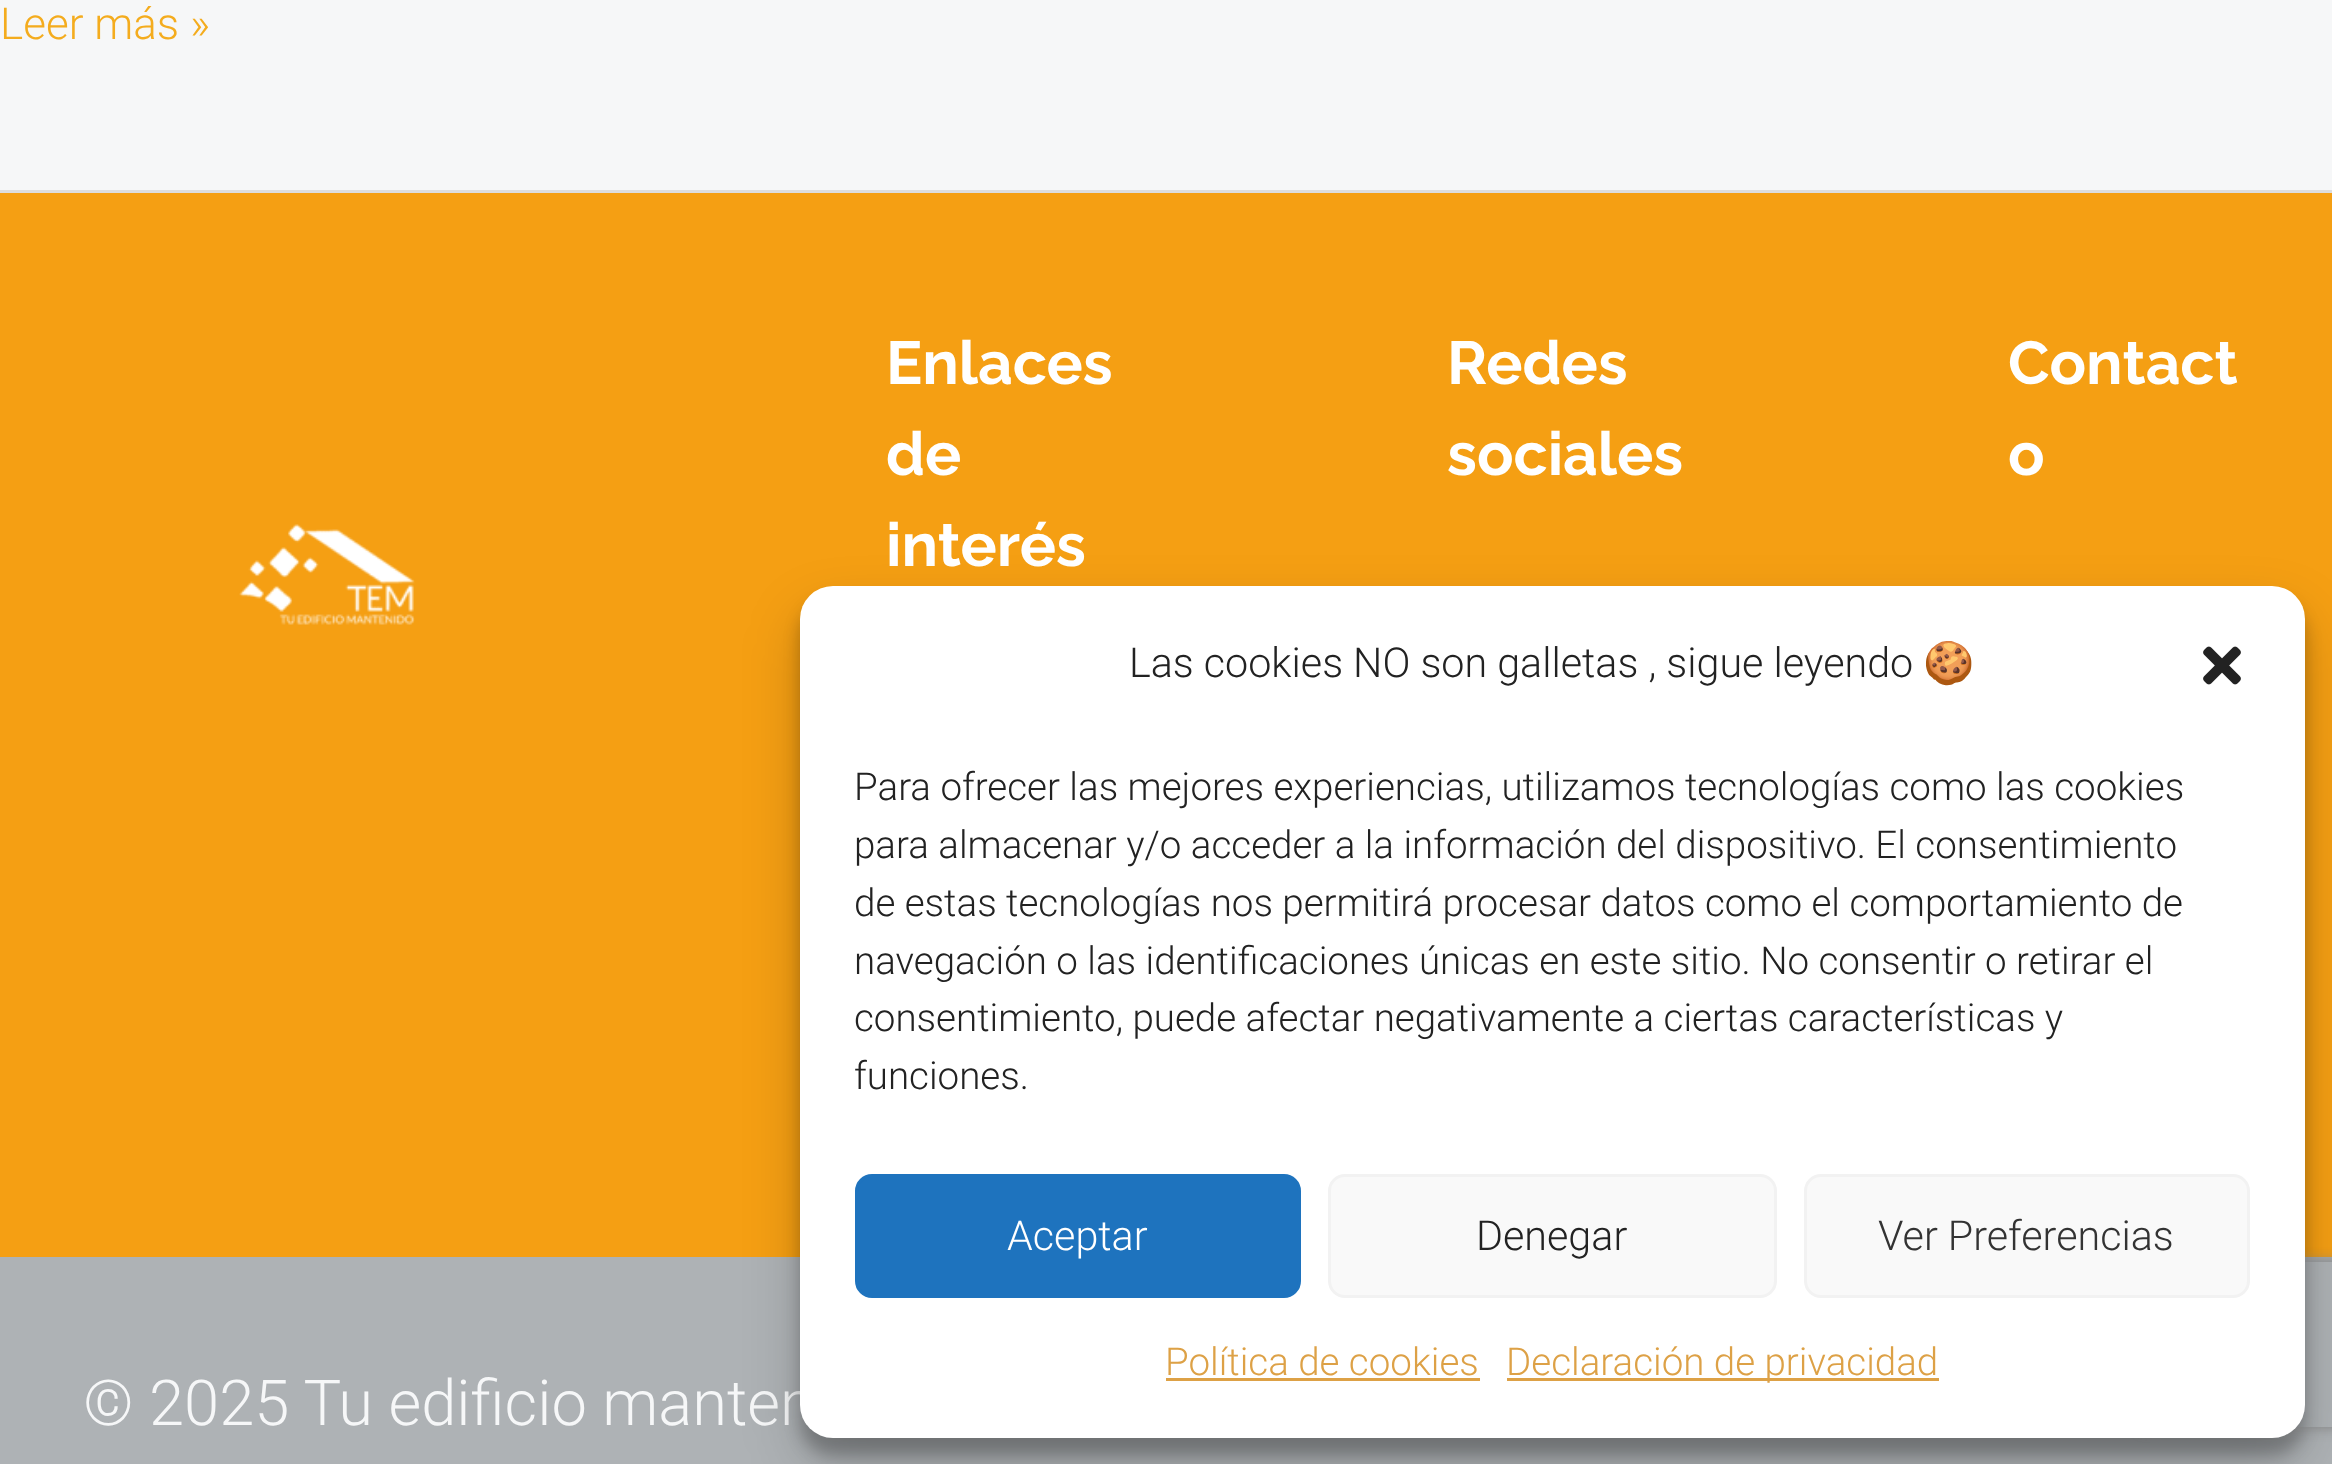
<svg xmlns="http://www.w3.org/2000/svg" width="2332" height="1464">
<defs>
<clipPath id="clip1"><path d="M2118 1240h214v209h-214zm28 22h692c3.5 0 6 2.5 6 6v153c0 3.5-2.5 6-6 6h-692c-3.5 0-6-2.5-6-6v-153c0-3.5 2.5-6 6-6z" clip-rule="evenodd"/></clipPath>
</defs>
<rect width="100%" height="100%" fill="#f6f7f8"/>
<rect y="190" width="2332" height="3" fill="#ddd"/>
<text x="0" y="39" style="font-family:Roboto;font-size:44px;font-weight:300;fill:#f4ac1e">Leer más »</text>
<rect y="193" width="2332" height="1064" fill="#f59f13"/>
<text x="886" y="384" style="font-family:Raleway;font-size:60.5px;font-weight:100;fill:#fff">Enlaces</text>
<text x="886" y="475" style="font-family:Raleway;font-size:60.5px;font-weight:100;fill:#fff">de</text>
<text x="886" y="566" style="font-family:Raleway;font-size:60.5px;font-weight:100;fill:#fff">interés</text>
<text x="1447" y="384" style="font-family:Raleway;font-size:60.5px;font-weight:100;fill:#fff">Redes</text>
<text x="1447" y="475" style="font-family:Raleway;font-size:60.5px;font-weight:100;fill:#fff">sociales</text>
<text x="2008" y="384" style="font-family:Raleway;font-size:60.5px;font-weight:100;fill:#fff">Contact</text>
<text x="2008" y="475" style="font-family:Raleway;font-size:60.5px;font-weight:100;fill:#fff">o</text>
<image x="239" y="524" width="176" height="101" href="media/1.png"/>
<rect y="1257" width="2332" height="207" fill="#aeb2b5"/>
<text x="83" y="1425" style="font-family:Roboto;font-size:63.25px;font-weight:300;fill:#f6f7f8">© 2025 Tu edificio manten</text>
<rect x="800" y="602" width="1505" height="853" rx="33" fill="#0000003b" filter="blur(8px)"/>
<rect x="800" y="613" width="1505" height="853" rx="33" fill="#00000030" filter="blur(27.5px)"/>
<g clip-path="url(#clip1)">
<rect x="2140" y="1262" width="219" height="165" rx="6" fill="#808080" filter="blur(7px)"/>
</g>
<rect x="800" y="586" width="1505" height="852" rx="33" fill="#fff"/>
<text x="1129" y="677" style="font-family:Roboto;font-size:41.25px;font-weight:300;fill:#222">Las cookies NO son galletas , sigue leyendo</text>
<text x="1923" y="677" style="font-family:Noto Color Emoji;font-size:41.25px;fill:#222">🍪</text>
<image x="2203" y="646" width="38" height="39" href="media/2.png"/>
<text x="854" y="800" style="font-family:Roboto;font-size:38.5px;font-weight:300;fill:#222">Para ofrecer las mejores experiencias, utilizamos tecnologías como las cookies</text>
<text x="854" y="858" style="font-family:Roboto;font-size:38.5px;font-weight:300;fill:#222">para almacenar y/o acceder a la información del dispositivo. El consentimiento</text>
<text x="854" y="916" style="font-family:Roboto;font-size:38.5px;font-weight:300;fill:#222">de estas tecnologías nos permitirá procesar datos como el comportamiento de</text>
<text x="854" y="974" style="font-family:Roboto;font-size:38.5px;font-weight:300;fill:#222">navegación o las identificaciones únicas en este sitio. No consentir o retirar el</text>
<text x="854" y="1031" style="font-family:Roboto;font-size:38.5px;font-weight:300;fill:#222">consentimiento, puede afectar negativamente a ciertas características y</text>
<text x="854" y="1089" style="font-family:Roboto;font-size:38.5px;font-weight:300;fill:#222">funciones.</text>
<rect x="856.5" y="1175.5" width="443" height="121" rx="15.5" fill="#1e73be" stroke="#1e73be" stroke-width="3"/>
<text x="1007" y="1250" style="font-family:Roboto;font-size:41.25px;font-weight:300;fill:#fff">Aceptar</text>
<rect x="1329.5" y="1175.5" width="446" height="121" rx="15.5" fill="#f9f9f9" stroke="#f2f2f2" stroke-width="3"/>
<text x="1476" y="1250" style="font-family:Roboto;font-size:41.25px;font-weight:300;fill:#222">Denegar</text>
<rect x="1805.5" y="1175.5" width="443" height="121" rx="15.5" fill="#f9f9f9" stroke="#f2f2f2" stroke-width="3"/>
<text x="1878" y="1250" style="font-family:Roboto;font-size:41.25px;font-weight:300;fill:#333">Ver Preferencias</text>
<text x="1165" y="1375" style="font-family:Roboto;font-size:38.5px;font-weight:300;fill:#dda146">Política de cookies</text>
<rect x="1166" y="1378" width="314" height="3" fill="#dda146"/>
<rect x="1507" y="1378" width="432" height="3" fill="#dda146"/>
<text x="1506" y="1375" style="font-family:Roboto;font-size:38.5px;font-weight:300;fill:#dda146">Declaración de privacidad</text>
</svg>
